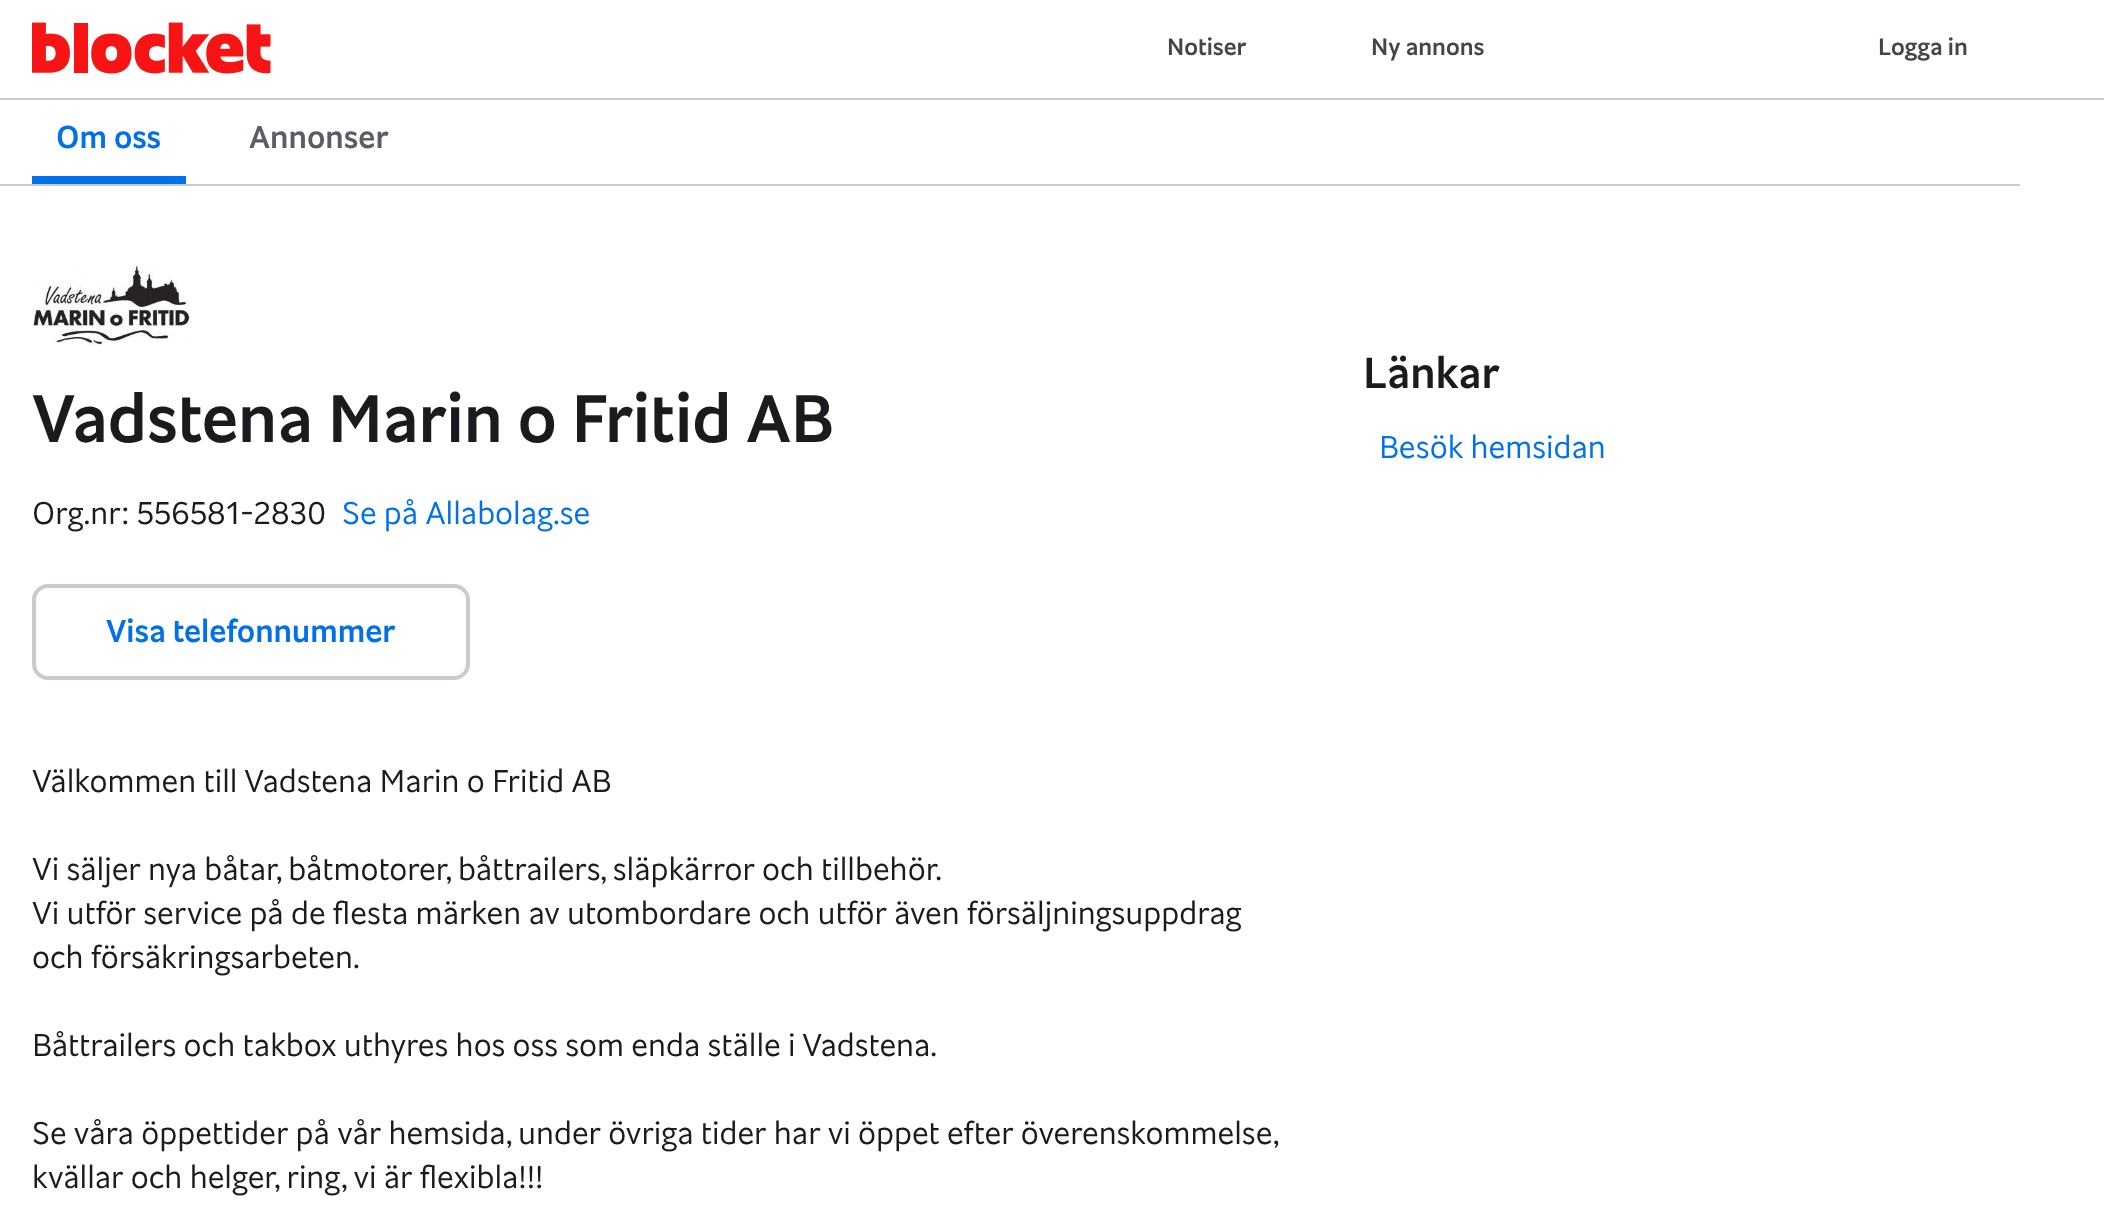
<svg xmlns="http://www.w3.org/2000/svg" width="2104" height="1211">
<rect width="100%" height="100%" fill="#fff"/>
<rect y="98" width="2104" height="2" fill="#cacad1"/>
<image x="32" y="22" width="239" height="52" href="media/1.png"/>
<text x="1167" y="55" style="font-family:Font;font-size:24px;font-weight:500;fill:#474445">Notiser</text>
<text x="1371" y="55" style="font-family:Font;font-size:24px;font-weight:500;fill:#474445">Ny annons</text>
<text x="1878" y="55" style="font-family:Font;font-size:24px;font-weight:500;fill:#474445">Logga in</text>
<rect y="184" width="2020" height="2" fill="#cacad1"/>
<rect x="32" y="176" width="154" height="8" fill="#0071eb"/>
<text x="56" y="148" style="font-family:Font;font-size:32px;font-weight:500;fill:#0071eb">Om oss</text>
<text x="249" y="148" style="font-family:Font;font-size:32px;font-weight:500;fill:#5c5c66">Annonser</text>
<image x="32" y="266" width="158" height="80" href="media/2.png"/>
<text x="32" y="442" style="font-family:Font;font-size:68px;font-weight:500;fill:#1b1b1f">Vadstena Marin o Fritid AB</text>
<text x="32" y="524" style="font-family:Font;font-size:32px;fill:#1b1b1f">Org.nr: 556581-2830</text>
<text x="342" y="524" style="font-family:Font;font-size:32px;fill:#0071eb">Se på Allabolag.se</text>
<rect x="34" y="586" width="434" height="92" rx="14" fill="none" stroke="#cacad1" stroke-width="4"/>
<text x="106" y="642" style="font-family:Font;font-size:32px;font-weight:500;fill:#0071eb">Visa telefonnummer</text>
<text x="32" y="792" style="font-family:Font;font-size:32px;fill:#1b1b1f">Välkommen till Vadstena Marin o Fritid AB</text>
<text x="32" y="880" style="font-family:Font;font-size:32px;fill:#1b1b1f">Vi säljer nya båtar, båtmotorer, båttrailers, släpkärror och tillbehör.</text>
<text x="32" y="924" style="font-family:Font;font-size:32px;fill:#1b1b1f">Vi utför service på de flesta märken av utombordare och utför även försäljningsuppdrag</text>
<text x="32" y="968" style="font-family:Font;font-size:32px;fill:#1b1b1f">och försäkringsarbeten.</text>
<text x="32" y="1056" style="font-family:Font;font-size:32px;fill:#1b1b1f">Båttrailers och takbox uthyres hos oss som enda ställe i Vadstena.</text>
<text x="32" y="1144" style="font-family:Font;font-size:32px;fill:#1b1b1f">Se våra öppettider på vår hemsida, under övriga tider har vi öppet efter överenskommelse,</text>
<text x="32" y="1188" style="font-family:Font;font-size:32px;fill:#1b1b1f">kvällar och helger, ring, vi är flexibla!!!</text>
<text x="1363" y="388" style="font-family:Font;font-size:44px;font-weight:500;fill:#1b1b1f">Länkar</text>
<text x="1379" y="458" style="font-family:Font;font-size:32px;fill:#0071eb">Besök hemsidan</text>
</svg>
